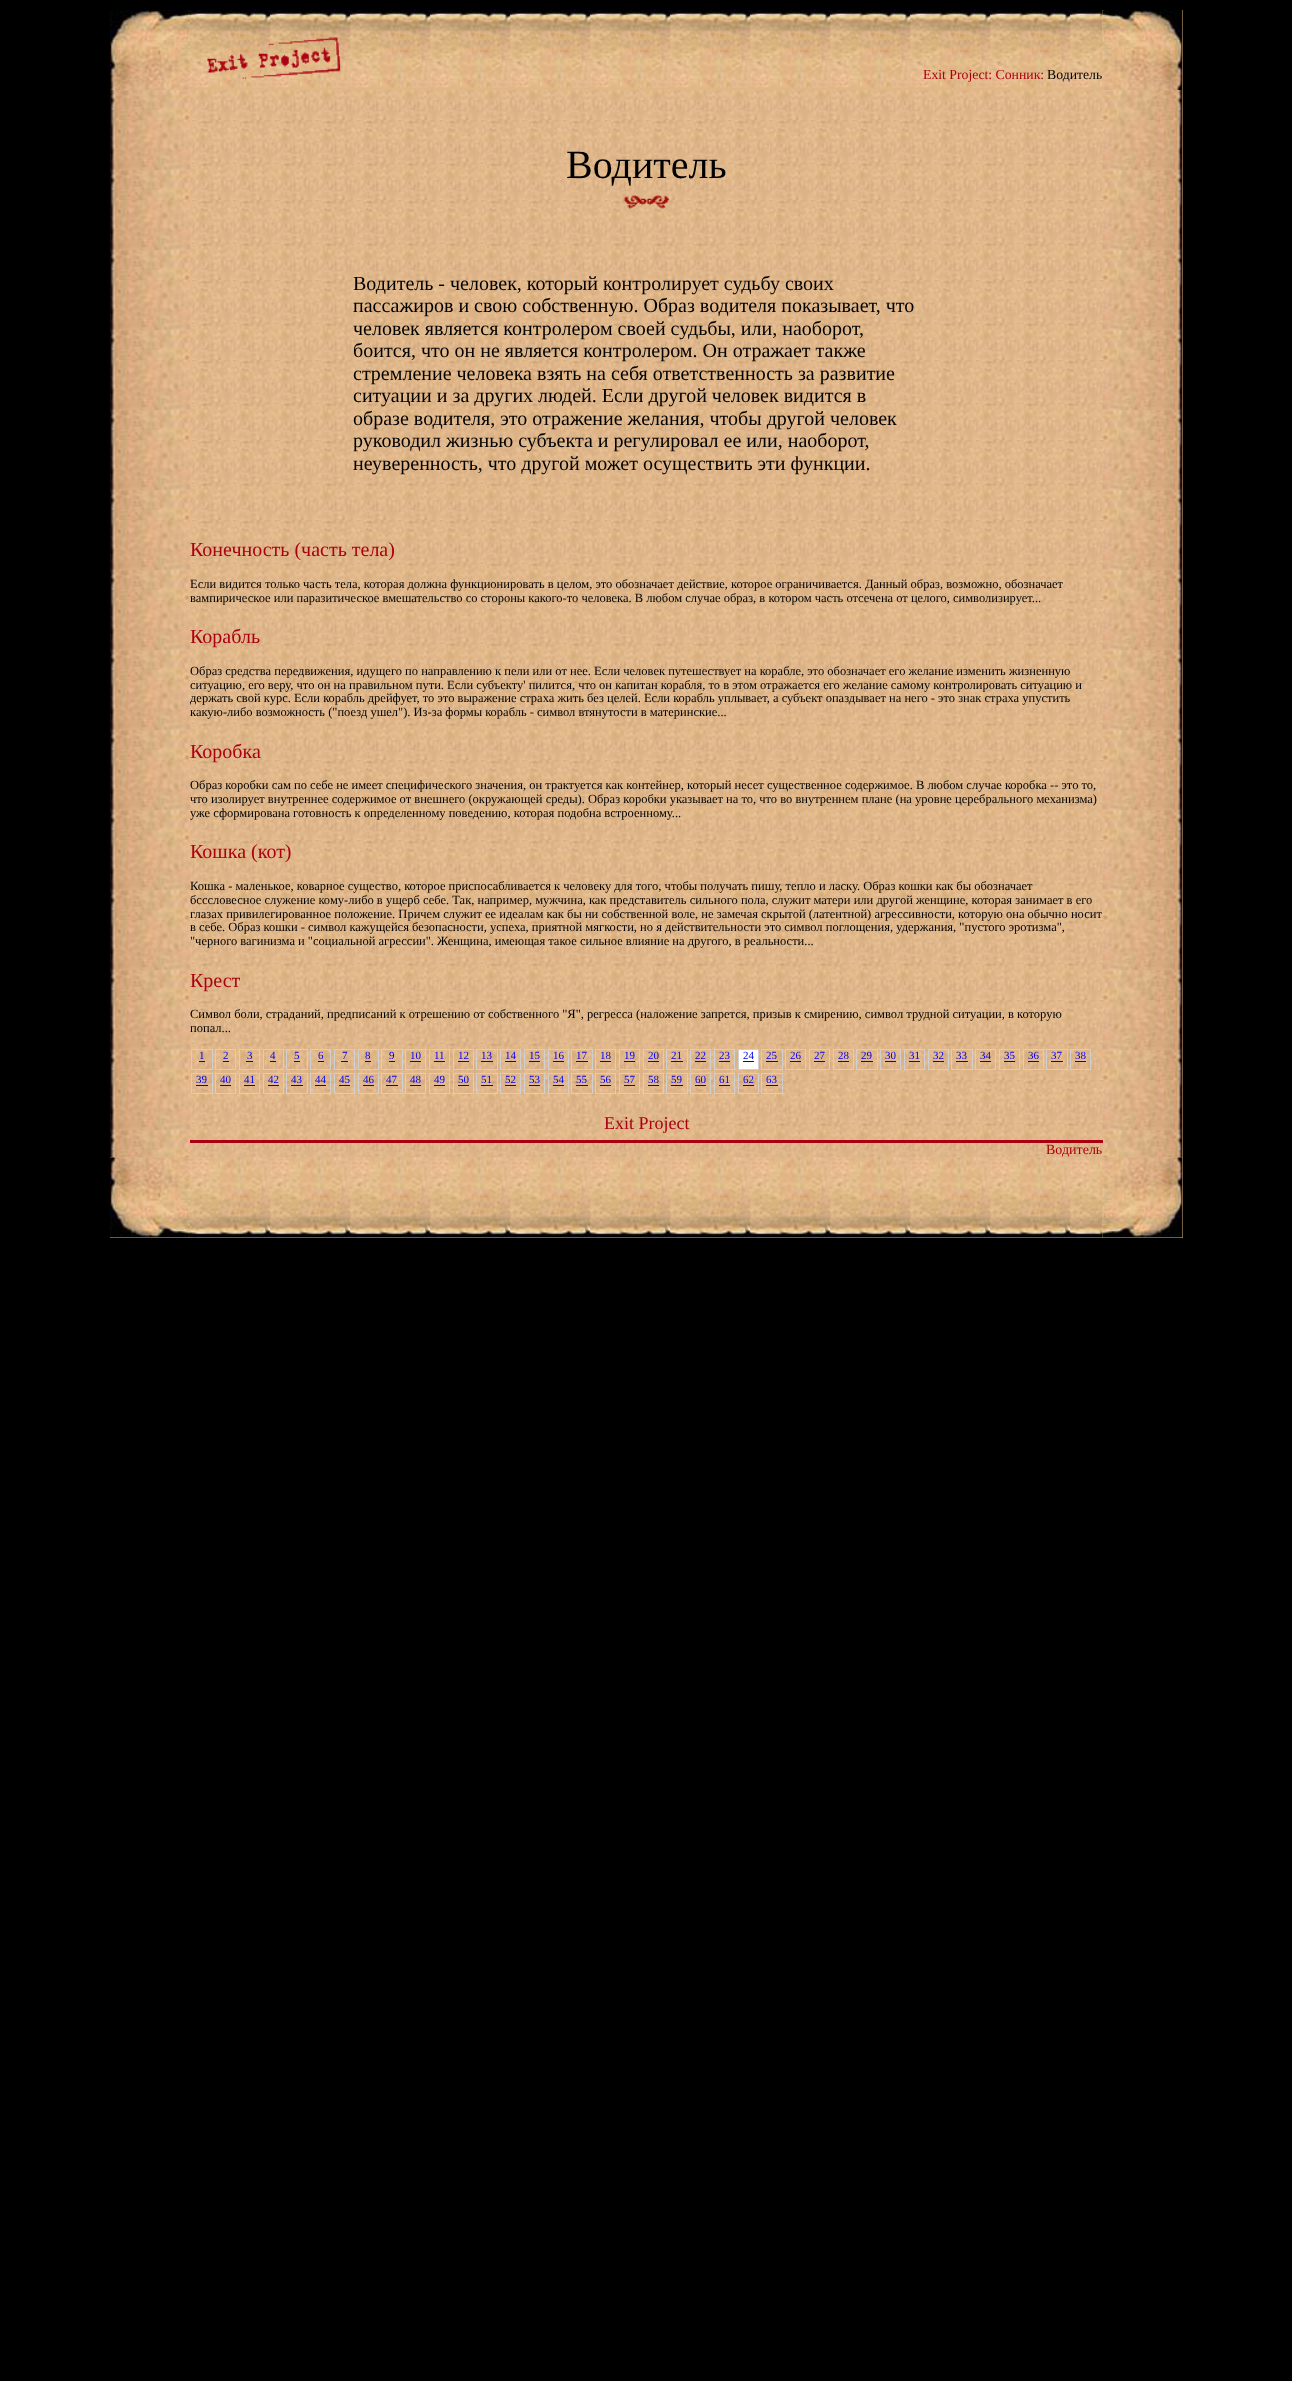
<svg xmlns="http://www.w3.org/2000/svg" width="1292" height="2381">
<rect width="100%" height="100%" fill="#000"/>
<rect x="110" y="10" width="1073" height="1228" fill="#e2b784"/>
<image x="110" y="10" width="80" height="80" href="media/1.png"/>
<image x="190" y="10" width="913" height="78" href="media/2.png"/>
<image x="207" y="37" width="134" height="42" href="media/3.png"/>
<text x="923" y="79" style="font-family:Liberation Serif;font-size:13.75px;fill:#a01">Exit Project: Сонник:</text>
<text x="1047" y="79" style="font-family:Liberation Serif;font-size:13.75px;fill:#000">Водитель</text>
<image x="1102" y="10" width="81" height="80" href="media/4.png"/>
<image x="110" y="90" width="1073" height="1068" href="media/5.png"/>
<image x="623" y="195" width="46" height="14" href="media/6.png"/>
<text x="566" y="178" style="font-family:Liberation Serif;font-size:40px;fill:#000">Водитель</text>
<text x="353" y="290" style="font-family:Liberation Serif;font-size:20px;fill:#000">Водитель - человек, который контролирует судьбу своих</text>
<text x="353" y="312" style="font-family:Liberation Serif;font-size:20px;fill:#000">пассажиров и свою собственную. Образ водителя показывает, что</text>
<text x="353" y="335" style="font-family:Liberation Serif;font-size:20px;fill:#000">человек является контролером своей судьбы, или, наоборот,</text>
<text x="353" y="357" style="font-family:Liberation Serif;font-size:20px;fill:#000">боится, что он не является контролером. Он отражает также</text>
<text x="353" y="380" style="font-family:Liberation Serif;font-size:20px;fill:#000">стремление человека взять на себя ответственность за развитие</text>
<text x="353" y="402" style="font-family:Liberation Serif;font-size:20px;fill:#000">ситуации и за других людей. Если другой человек видится в</text>
<text x="353" y="425" style="font-family:Liberation Serif;font-size:20px;fill:#000">образе водителя, это отражение желания, чтобы другой человек</text>
<text x="353" y="447" style="font-family:Liberation Serif;font-size:20px;fill:#000">руководил жизнью субъекта и регулировал ее или, наоборот,</text>
<text x="353" y="470" style="font-family:Liberation Serif;font-size:20px;fill:#000">неуверенность, что другой может осуществить эти функции.</text>
<text x="190" y="556" style="font-family:Liberation Serif;font-size:20px;fill:#a01">Конечность (часть тела)</text>
<text x="190" y="588" style="font-family:Liberation Serif;font-size:12.5px;fill:#000">Если видится только часть тела, которая должна функционировать в целом, это обозначает действие, которое ограничивается. Данный образ, возможно, обозначает</text>
<text x="190" y="602" style="font-family:Liberation Serif;font-size:12.5px;fill:#000">вампирическое или паразитическое вмешательство со стороны какого-то человека. В любом случае образ, в котором часть отсечена от целого, символизирует...</text>
<text x="190" y="643" style="font-family:Liberation Serif;font-size:20px;fill:#a01">Корабль</text>
<text x="190" y="675" style="font-family:Liberation Serif;font-size:12.5px;fill:#000">Образ средства передвижения, идущего по направлению к пели или от нее. Если человек путешествует на корабле, это обозначает его желание изменить жизненную</text>
<text x="190" y="689" style="font-family:Liberation Serif;font-size:12.5px;fill:#000">ситуацию, его веру, что он на правильном пути. Если субъекту' пилится, что он капитан корабля, то в этом отражается его желание самому контролировать ситуацию и</text>
<text x="190" y="702" style="font-family:Liberation Serif;font-size:12.5px;fill:#000">держать свой курс. Если корабль дрейфует, то это выражение страха жить без целей. Если корабль уплывает, а субъект опаздывает на него - это знак страха упустить</text>
<text x="190" y="716" style="font-family:Liberation Serif;font-size:12.5px;fill:#000">какую-либо возможность ("поезд ушел"). Из-за формы корабль - символ втянутости в материнские...</text>
<text x="190" y="758" style="font-family:Liberation Serif;font-size:20px;fill:#a01">Коробка</text>
<text x="190" y="789" style="font-family:Liberation Serif;font-size:12.5px;fill:#000">Образ коробки сам по себе не имеет специфического значения, он трактуется как контейнер, который несет существенное содержимое. В любом случае коробка -- это то,</text>
<text x="190" y="803" style="font-family:Liberation Serif;font-size:12.5px;fill:#000">что изолирует внутреннее содержимое от внешнего (окружающей среды). Образ коробки указывает на то, что во внутреннем плане (на уровне церебрального механизма)</text>
<text x="190" y="817" style="font-family:Liberation Serif;font-size:12.5px;fill:#000">уже сформирована готовность к определенному поведению, которая подобна встроенному...</text>
<text x="190" y="858" style="font-family:Liberation Serif;font-size:20px;fill:#a01">Кошка (кот)</text>
<text x="190" y="890" style="font-family:Liberation Serif;font-size:12.5px;fill:#000">Кошка - маленькое, коварное существо, которое приспосабливается к человеку для того, чтобы получать пишу, тепло и ласку. Образ кошки как бы обозначает</text>
<text x="190" y="904" style="font-family:Liberation Serif;font-size:12.5px;fill:#000">бсссловесное служение кому-либо в ущерб себе. Так, например, мужчина, как представитель сильного пола, служит матери или другой женщине, которая занимает в его</text>
<text x="190" y="918" style="font-family:Liberation Serif;font-size:12.5px;fill:#000">глазах привилегированное положение. Причем служит ее идеалам как бы ни собственной воле, не замечая скрытой (латентной) агрессивности, которую она обычно носит</text>
<text x="190" y="931" style="font-family:Liberation Serif;font-size:12.5px;fill:#000">в себе. Образ кошки - символ кажущейся безопасности, успеха, приятной мягкости, но я действительности это символ поглощения, удержания, "пустого эротизма",</text>
<text x="190" y="945" style="font-family:Liberation Serif;font-size:12.5px;fill:#000">"черного вагинизма и "социальной агрессии". Женщина, имеющая такое сильное влияние на другого, в реальности...</text>
<text x="190" y="987" style="font-family:Liberation Serif;font-size:20px;fill:#a01">Крест</text>
<text x="190" y="1018" style="font-family:Liberation Serif;font-size:12.5px;fill:#000">Символ боли, страданий, предписаний к отрешению от собственного "Я", регресса (наложение запрется, призыв к смирению, символ трудной ситуации, в которую</text>
<text x="190" y="1032" style="font-family:Liberation Serif;font-size:12.5px;fill:#000">попал...</text>
<rect x="191.5" y="1049.5" width="21" height="20" fill="none" stroke="#d0d0d0"/>
<text x="199" y="1059" style="font-family:Liberation Serif;font-size:11px;fill:#00e">1</text>
<rect x="199" y="1061" width="6" height="1" fill="#00e"/>
<rect x="215.5" y="1049.5" width="20" height="20" fill="none" stroke="#d0d0d0"/>
<text x="223" y="1059" style="font-family:Liberation Serif;font-size:11px;fill:#00e">2</text>
<rect x="223" y="1061" width="6" height="1" fill="#00e"/>
<rect x="239.5" y="1049.5" width="20" height="20" fill="none" stroke="#d0d0d0"/>
<text x="247" y="1059" style="font-family:Liberation Serif;font-size:11px;fill:#00e">3</text>
<rect x="246" y="1061" width="7" height="1" fill="#00e"/>
<rect x="263.5" y="1049.5" width="20" height="20" fill="none" stroke="#d0d0d0"/>
<text x="270" y="1059" style="font-family:Liberation Serif;font-size:11px;fill:#00e">4</text>
<rect x="270" y="1061" width="6" height="1" fill="#00e"/>
<rect x="286.5" y="1049.5" width="21" height="20" fill="none" stroke="#d0d0d0"/>
<text x="294" y="1059" style="font-family:Liberation Serif;font-size:11px;fill:#00e">5</text>
<rect x="294" y="1061" width="6" height="1" fill="#00e"/>
<rect x="310.5" y="1049.5" width="20" height="20" fill="none" stroke="#d0d0d0"/>
<text x="318" y="1059" style="font-family:Liberation Serif;font-size:11px;fill:#00e">6</text>
<rect x="318" y="1061" width="6" height="1" fill="#00e"/>
<rect x="334.5" y="1049.5" width="20" height="20" fill="none" stroke="#d0d0d0"/>
<text x="342" y="1059" style="font-family:Liberation Serif;font-size:11px;fill:#00e">7</text>
<rect x="341" y="1061" width="7" height="1" fill="#00e"/>
<rect x="358.5" y="1049.5" width="20" height="20" fill="none" stroke="#d0d0d0"/>
<text x="365" y="1059" style="font-family:Liberation Serif;font-size:11px;fill:#00e">8</text>
<rect x="365" y="1061" width="6" height="1" fill="#00e"/>
<rect x="381.5" y="1049.5" width="21" height="20" fill="none" stroke="#d0d0d0"/>
<text x="389" y="1059" style="font-family:Liberation Serif;font-size:11px;fill:#00e">9</text>
<rect x="389" y="1061" width="6" height="1" fill="#00e"/>
<rect x="405.5" y="1049.5" width="20" height="20" fill="none" stroke="#d0d0d0"/>
<text x="410" y="1059" style="font-family:Liberation Serif;font-size:11px;fill:#00e">10</text>
<rect x="410" y="1061" width="11" height="1" fill="#00e"/>
<rect x="429.5" y="1049.5" width="20" height="20" fill="none" stroke="#d0d0d0"/>
<text x="434" y="1059" style="font-family:Liberation Serif;font-size:11px;fill:#00e">11</text>
<rect x="434" y="1061" width="11" height="1" fill="#00e"/>
<rect x="453.5" y="1049.5" width="20" height="20" fill="none" stroke="#d0d0d0"/>
<text x="458" y="1059" style="font-family:Liberation Serif;font-size:11px;fill:#00e">12</text>
<rect x="458" y="1061" width="11" height="1" fill="#00e"/>
<rect x="476.5" y="1049.5" width="21" height="20" fill="none" stroke="#d0d0d0"/>
<text x="481" y="1059" style="font-family:Liberation Serif;font-size:11px;fill:#00e">13</text>
<rect x="481" y="1061" width="12" height="1" fill="#00e"/>
<rect x="500.5" y="1049.5" width="20" height="20" fill="none" stroke="#d0d0d0"/>
<text x="505" y="1059" style="font-family:Liberation Serif;font-size:11px;fill:#00e">14</text>
<rect x="505" y="1061" width="11" height="1" fill="#00e"/>
<rect x="524.5" y="1049.5" width="20" height="20" fill="none" stroke="#d0d0d0"/>
<text x="529" y="1059" style="font-family:Liberation Serif;font-size:11px;fill:#00e">15</text>
<rect x="529" y="1061" width="11" height="1" fill="#00e"/>
<rect x="548.5" y="1049.5" width="20" height="20" fill="none" stroke="#d0d0d0"/>
<text x="553" y="1059" style="font-family:Liberation Serif;font-size:11px;fill:#00e">16</text>
<rect x="553" y="1061" width="11" height="1" fill="#00e"/>
<rect x="571.5" y="1049.5" width="21" height="20" fill="none" stroke="#d0d0d0"/>
<text x="576" y="1059" style="font-family:Liberation Serif;font-size:11px;fill:#00e">17</text>
<rect x="576" y="1061" width="12" height="1" fill="#00e"/>
<rect x="595.5" y="1049.5" width="20" height="20" fill="none" stroke="#d0d0d0"/>
<text x="600" y="1059" style="font-family:Liberation Serif;font-size:11px;fill:#00e">18</text>
<rect x="600" y="1061" width="11" height="1" fill="#00e"/>
<rect x="619.5" y="1049.5" width="20" height="20" fill="none" stroke="#d0d0d0"/>
<text x="624" y="1059" style="font-family:Liberation Serif;font-size:11px;fill:#00e">19</text>
<rect x="624" y="1061" width="11" height="1" fill="#00e"/>
<rect x="643.5" y="1049.5" width="20" height="20" fill="none" stroke="#d0d0d0"/>
<text x="648" y="1059" style="font-family:Liberation Serif;font-size:11px;fill:#00e">20</text>
<rect x="648" y="1061" width="11" height="1" fill="#00e"/>
<rect x="666.5" y="1049.5" width="21" height="20" fill="none" stroke="#d0d0d0"/>
<text x="671" y="1059" style="font-family:Liberation Serif;font-size:11px;fill:#00e">21</text>
<rect x="671" y="1061" width="12" height="1" fill="#00e"/>
<rect x="690.5" y="1049.5" width="20" height="20" fill="none" stroke="#d0d0d0"/>
<text x="695" y="1059" style="font-family:Liberation Serif;font-size:11px;fill:#00e">22</text>
<rect x="695" y="1061" width="11" height="1" fill="#00e"/>
<rect x="714.5" y="1049.5" width="20" height="20" fill="none" stroke="#d0d0d0"/>
<text x="719" y="1059" style="font-family:Liberation Serif;font-size:11px;fill:#00e">23</text>
<rect x="719" y="1061" width="11" height="1" fill="#00e"/>
<rect x="738.5" y="1049.5" width="20" height="20" fill="#fff" stroke="#d0d0d0"/>
<text x="743" y="1059" style="font-family:Liberation Serif;font-size:11px;fill:#00e">24</text>
<rect x="743" y="1061" width="11" height="1" fill="#00e"/>
<rect x="761.5" y="1049.5" width="21" height="20" fill="none" stroke="#d0d0d0"/>
<text x="766" y="1059" style="font-family:Liberation Serif;font-size:11px;fill:#00e">25</text>
<rect x="766" y="1061" width="12" height="1" fill="#00e"/>
<rect x="785.5" y="1049.5" width="20" height="20" fill="none" stroke="#d0d0d0"/>
<text x="790" y="1059" style="font-family:Liberation Serif;font-size:11px;fill:#00e">26</text>
<rect x="790" y="1061" width="11" height="1" fill="#00e"/>
<rect x="809.5" y="1049.5" width="20" height="20" fill="none" stroke="#d0d0d0"/>
<text x="814" y="1059" style="font-family:Liberation Serif;font-size:11px;fill:#00e">27</text>
<rect x="814" y="1061" width="11" height="1" fill="#00e"/>
<rect x="833.5" y="1049.5" width="20" height="20" fill="none" stroke="#d0d0d0"/>
<text x="838" y="1059" style="font-family:Liberation Serif;font-size:11px;fill:#00e">28</text>
<rect x="838" y="1061" width="11" height="1" fill="#00e"/>
<rect x="856.5" y="1049.5" width="21" height="20" fill="none" stroke="#d0d0d0"/>
<text x="861" y="1059" style="font-family:Liberation Serif;font-size:11px;fill:#00e">29</text>
<rect x="861" y="1061" width="12" height="1" fill="#00e"/>
<rect x="880.5" y="1049.5" width="20" height="20" fill="none" stroke="#d0d0d0"/>
<text x="885" y="1059" style="font-family:Liberation Serif;font-size:11px;fill:#00e">30</text>
<rect x="885" y="1061" width="11" height="1" fill="#00e"/>
<rect x="904.5" y="1049.5" width="20" height="20" fill="none" stroke="#d0d0d0"/>
<text x="909" y="1059" style="font-family:Liberation Serif;font-size:11px;fill:#00e">31</text>
<rect x="909" y="1061" width="11" height="1" fill="#00e"/>
<rect x="928.5" y="1049.5" width="20" height="20" fill="none" stroke="#d0d0d0"/>
<text x="933" y="1059" style="font-family:Liberation Serif;font-size:11px;fill:#00e">32</text>
<rect x="933" y="1061" width="11" height="1" fill="#00e"/>
<rect x="951.5" y="1049.5" width="21" height="20" fill="none" stroke="#d0d0d0"/>
<text x="956" y="1059" style="font-family:Liberation Serif;font-size:11px;fill:#00e">33</text>
<rect x="956" y="1061" width="12" height="1" fill="#00e"/>
<rect x="975.5" y="1049.5" width="20" height="20" fill="none" stroke="#d0d0d0"/>
<text x="980" y="1059" style="font-family:Liberation Serif;font-size:11px;fill:#00e">34</text>
<rect x="980" y="1061" width="11" height="1" fill="#00e"/>
<rect x="999.5" y="1049.5" width="20" height="20" fill="none" stroke="#d0d0d0"/>
<text x="1004" y="1059" style="font-family:Liberation Serif;font-size:11px;fill:#00e">35</text>
<rect x="1004" y="1061" width="11" height="1" fill="#00e"/>
<rect x="1023.5" y="1049.5" width="20" height="20" fill="none" stroke="#d0d0d0"/>
<text x="1028" y="1059" style="font-family:Liberation Serif;font-size:11px;fill:#00e">36</text>
<rect x="1028" y="1061" width="11" height="1" fill="#00e"/>
<rect x="1046.5" y="1049.5" width="21" height="20" fill="none" stroke="#d0d0d0"/>
<text x="1051" y="1059" style="font-family:Liberation Serif;font-size:11px;fill:#00e">37</text>
<rect x="1051" y="1061" width="12" height="1" fill="#00e"/>
<rect x="1070.5" y="1049.5" width="20" height="20" fill="none" stroke="#d0d0d0"/>
<text x="1075" y="1059" style="font-family:Liberation Serif;font-size:11px;fill:#00e">38</text>
<rect x="1075" y="1061" width="11" height="1" fill="#00e"/>
<rect x="191.5" y="1073.5" width="21" height="20" fill="none" stroke="#d0d0d0"/>
<text x="196" y="1083" style="font-family:Liberation Serif;font-size:11px;fill:#00e">39</text>
<rect x="196" y="1085" width="12" height="1" fill="#00e"/>
<rect x="215.5" y="1073.5" width="20" height="20" fill="none" stroke="#d0d0d0"/>
<text x="220" y="1083" style="font-family:Liberation Serif;font-size:11px;fill:#00e">40</text>
<rect x="220" y="1085" width="11" height="1" fill="#00e"/>
<rect x="239.5" y="1073.5" width="20" height="20" fill="none" stroke="#d0d0d0"/>
<text x="244" y="1083" style="font-family:Liberation Serif;font-size:11px;fill:#00e">41</text>
<rect x="244" y="1085" width="11" height="1" fill="#00e"/>
<rect x="263.5" y="1073.5" width="20" height="20" fill="none" stroke="#d0d0d0"/>
<text x="268" y="1083" style="font-family:Liberation Serif;font-size:11px;fill:#00e">42</text>
<rect x="268" y="1085" width="11" height="1" fill="#00e"/>
<rect x="286.5" y="1073.5" width="21" height="20" fill="none" stroke="#d0d0d0"/>
<text x="291" y="1083" style="font-family:Liberation Serif;font-size:11px;fill:#00e">43</text>
<rect x="291" y="1085" width="12" height="1" fill="#00e"/>
<rect x="310.5" y="1073.5" width="20" height="20" fill="none" stroke="#d0d0d0"/>
<text x="315" y="1083" style="font-family:Liberation Serif;font-size:11px;fill:#00e">44</text>
<rect x="315" y="1085" width="11" height="1" fill="#00e"/>
<rect x="334.5" y="1073.5" width="20" height="20" fill="none" stroke="#d0d0d0"/>
<text x="339" y="1083" style="font-family:Liberation Serif;font-size:11px;fill:#00e">45</text>
<rect x="339" y="1085" width="11" height="1" fill="#00e"/>
<rect x="358.5" y="1073.5" width="20" height="20" fill="none" stroke="#d0d0d0"/>
<text x="363" y="1083" style="font-family:Liberation Serif;font-size:11px;fill:#00e">46</text>
<rect x="363" y="1085" width="11" height="1" fill="#00e"/>
<rect x="381.5" y="1073.5" width="21" height="20" fill="none" stroke="#d0d0d0"/>
<text x="386" y="1083" style="font-family:Liberation Serif;font-size:11px;fill:#00e">47</text>
<rect x="386" y="1085" width="12" height="1" fill="#00e"/>
<rect x="405.5" y="1073.5" width="20" height="20" fill="none" stroke="#d0d0d0"/>
<text x="410" y="1083" style="font-family:Liberation Serif;font-size:11px;fill:#00e">48</text>
<rect x="410" y="1085" width="11" height="1" fill="#00e"/>
<rect x="429.5" y="1073.5" width="20" height="20" fill="none" stroke="#d0d0d0"/>
<text x="434" y="1083" style="font-family:Liberation Serif;font-size:11px;fill:#00e">49</text>
<rect x="434" y="1085" width="11" height="1" fill="#00e"/>
<rect x="453.5" y="1073.5" width="20" height="20" fill="none" stroke="#d0d0d0"/>
<text x="458" y="1083" style="font-family:Liberation Serif;font-size:11px;fill:#00e">50</text>
<rect x="458" y="1085" width="11" height="1" fill="#00e"/>
<rect x="476.5" y="1073.5" width="21" height="20" fill="none" stroke="#d0d0d0"/>
<text x="481" y="1083" style="font-family:Liberation Serif;font-size:11px;fill:#00e">51</text>
<rect x="481" y="1085" width="12" height="1" fill="#00e"/>
<rect x="500.5" y="1073.5" width="20" height="20" fill="none" stroke="#d0d0d0"/>
<text x="505" y="1083" style="font-family:Liberation Serif;font-size:11px;fill:#00e">52</text>
<rect x="505" y="1085" width="11" height="1" fill="#00e"/>
<rect x="524.5" y="1073.5" width="20" height="20" fill="none" stroke="#d0d0d0"/>
<text x="529" y="1083" style="font-family:Liberation Serif;font-size:11px;fill:#00e">53</text>
<rect x="529" y="1085" width="11" height="1" fill="#00e"/>
<rect x="548.5" y="1073.5" width="20" height="20" fill="none" stroke="#d0d0d0"/>
<text x="553" y="1083" style="font-family:Liberation Serif;font-size:11px;fill:#00e">54</text>
<rect x="553" y="1085" width="11" height="1" fill="#00e"/>
<rect x="571.5" y="1073.5" width="21" height="20" fill="none" stroke="#d0d0d0"/>
<text x="576" y="1083" style="font-family:Liberation Serif;font-size:11px;fill:#00e">55</text>
<rect x="576" y="1085" width="12" height="1" fill="#00e"/>
<rect x="595.5" y="1073.5" width="20" height="20" fill="none" stroke="#d0d0d0"/>
<text x="600" y="1083" style="font-family:Liberation Serif;font-size:11px;fill:#00e">56</text>
<rect x="600" y="1085" width="11" height="1" fill="#00e"/>
<rect x="619.5" y="1073.5" width="20" height="20" fill="none" stroke="#d0d0d0"/>
<text x="624" y="1083" style="font-family:Liberation Serif;font-size:11px;fill:#00e">57</text>
<rect x="624" y="1085" width="11" height="1" fill="#00e"/>
<rect x="643.5" y="1073.5" width="20" height="20" fill="none" stroke="#d0d0d0"/>
<text x="648" y="1083" style="font-family:Liberation Serif;font-size:11px;fill:#00e">58</text>
<rect x="648" y="1085" width="11" height="1" fill="#00e"/>
<rect x="666.5" y="1073.5" width="21" height="20" fill="none" stroke="#d0d0d0"/>
<text x="671" y="1083" style="font-family:Liberation Serif;font-size:11px;fill:#00e">59</text>
<rect x="671" y="1085" width="12" height="1" fill="#00e"/>
<rect x="690.5" y="1073.5" width="20" height="20" fill="none" stroke="#d0d0d0"/>
<text x="695" y="1083" style="font-family:Liberation Serif;font-size:11px;fill:#00e">60</text>
<rect x="695" y="1085" width="11" height="1" fill="#00e"/>
<rect x="714.5" y="1073.5" width="20" height="20" fill="none" stroke="#d0d0d0"/>
<text x="719" y="1083" style="font-family:Liberation Serif;font-size:11px;fill:#00e">61</text>
<rect x="719" y="1085" width="11" height="1" fill="#00e"/>
<rect x="738.5" y="1073.5" width="20" height="20" fill="none" stroke="#d0d0d0"/>
<text x="743" y="1083" style="font-family:Liberation Serif;font-size:11px;fill:#00e">62</text>
<rect x="743" y="1085" width="11" height="1" fill="#00e"/>
<rect x="761.5" y="1073.5" width="21" height="20" fill="none" stroke="#d0d0d0"/>
<text x="766" y="1083" style="font-family:Liberation Serif;font-size:11px;fill:#00e">63</text>
<rect x="766" y="1085" width="12" height="1" fill="#00e"/>
<text x="604" y="1129" style="font-family:Liberation Serif;font-size:18px;fill:#a01">Exit Project</text>
<rect x="190" y="1140" width="913" height="3" fill="#a01"/>
<text x="1046" y="1154" style="font-family:Liberation Serif;font-size:14px;fill:#a01">Водитель</text>
<image x="110" y="1157" width="80" height="81" href="media/7.png"/>
<image x="190" y="1157" width="913" height="81" href="media/8.png"/>
<image x="1102" y="1157" width="81" height="81" href="media/9.png"/>
</svg>
